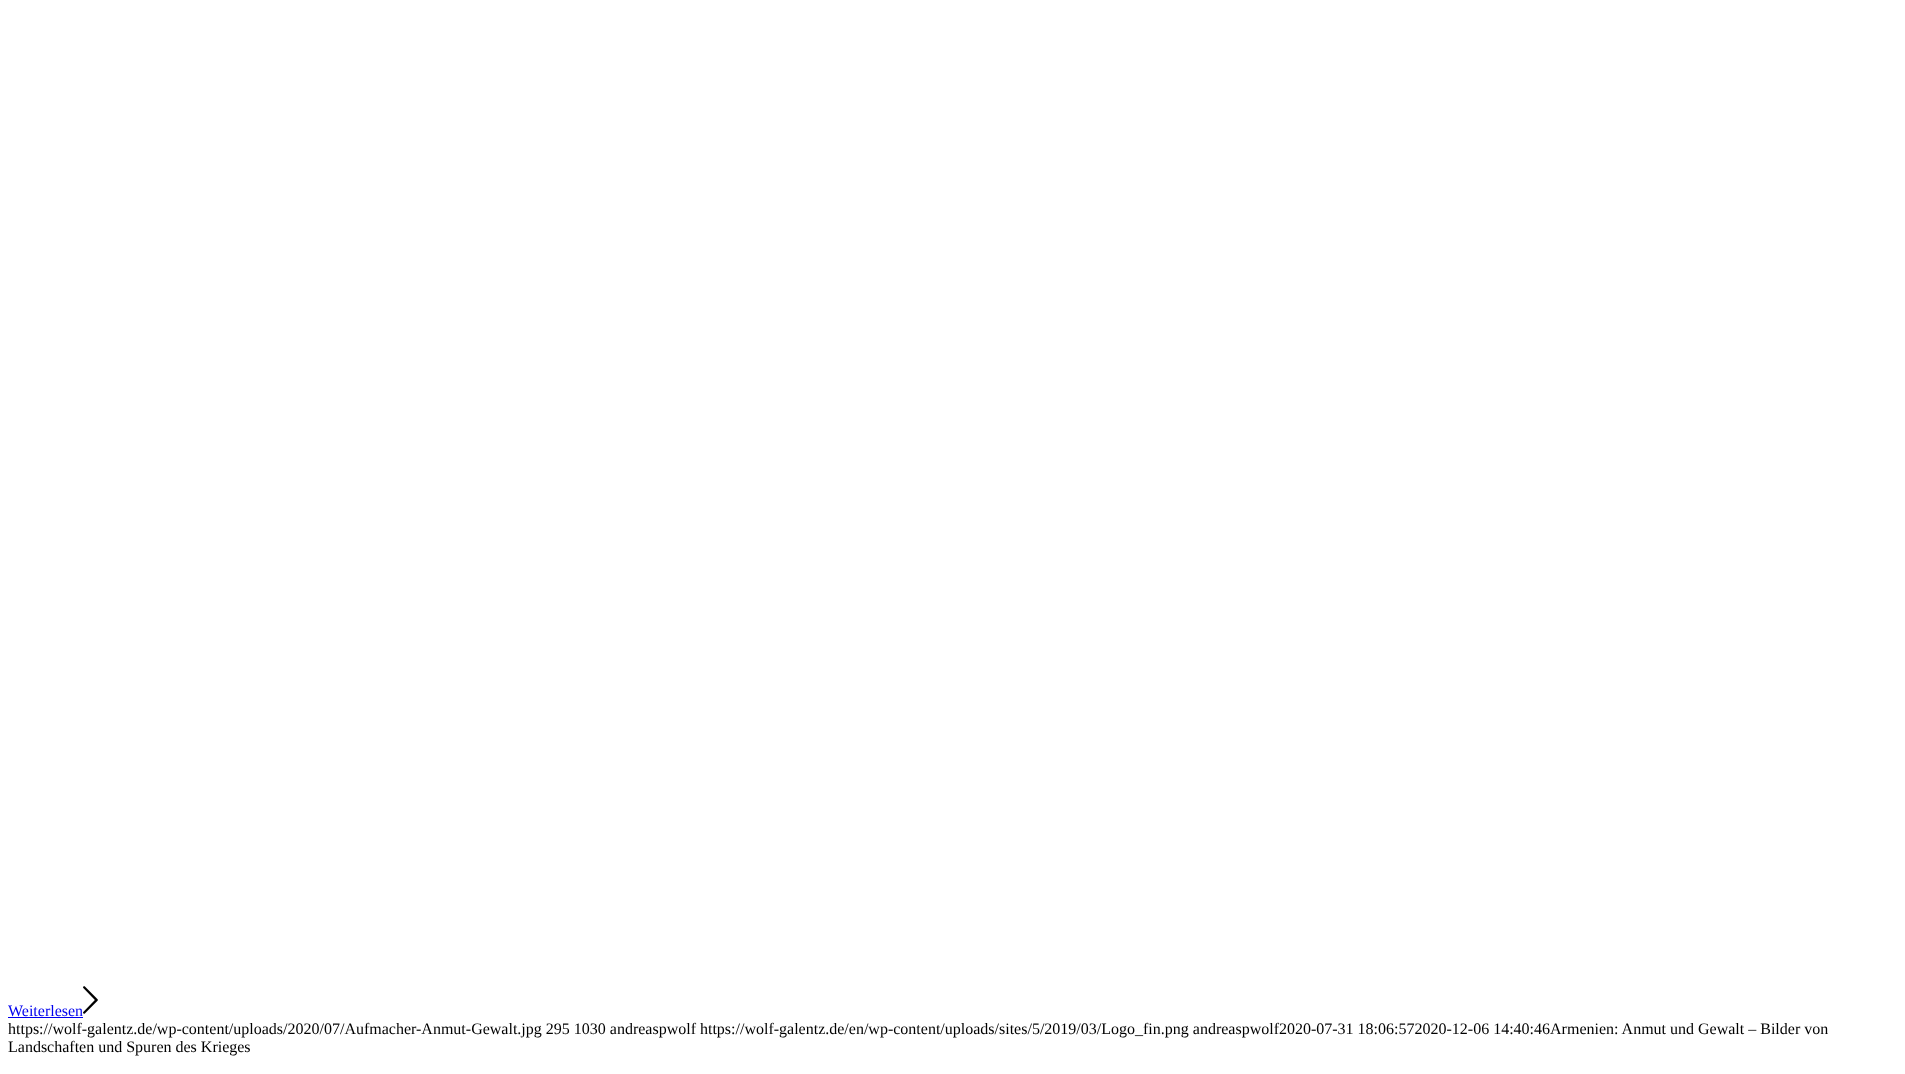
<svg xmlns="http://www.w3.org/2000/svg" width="1905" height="1074">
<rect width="100%" height="100%" fill="#fff"/>
<text x="8" y="1016" style="font-family:Liberation Serif;font-size:16px;fill:#00e">Weiterlesen</text>
<rect x="8" y="1017" width="75" height="1" fill="#00e"/>
<image x="83" y="986" width="15" height="28" href="media/1.png"/>
<text x="8" y="1034" style="font-family:Liberation Serif;font-size:16px;fill:#000">https://wolf-galentz.de/wp-content/uploads/2020/07/Aufmacher-Anmut-Gewalt.jpg 295 1030 andreaspwolf https://wolf-galentz.de/en/wp-content/uploads/sites/5/2019/03/Logo_fin.png andreaspwolf2020-07-31 18:06:572020-12-06 14:40:46Armenien: Anmut und Gewalt – Bilder von</text>
<text x="8" y="1052" style="font-family:Liberation Serif;font-size:16px;fill:#000">Landschaften und Spuren des Krieges</text>
</svg>
